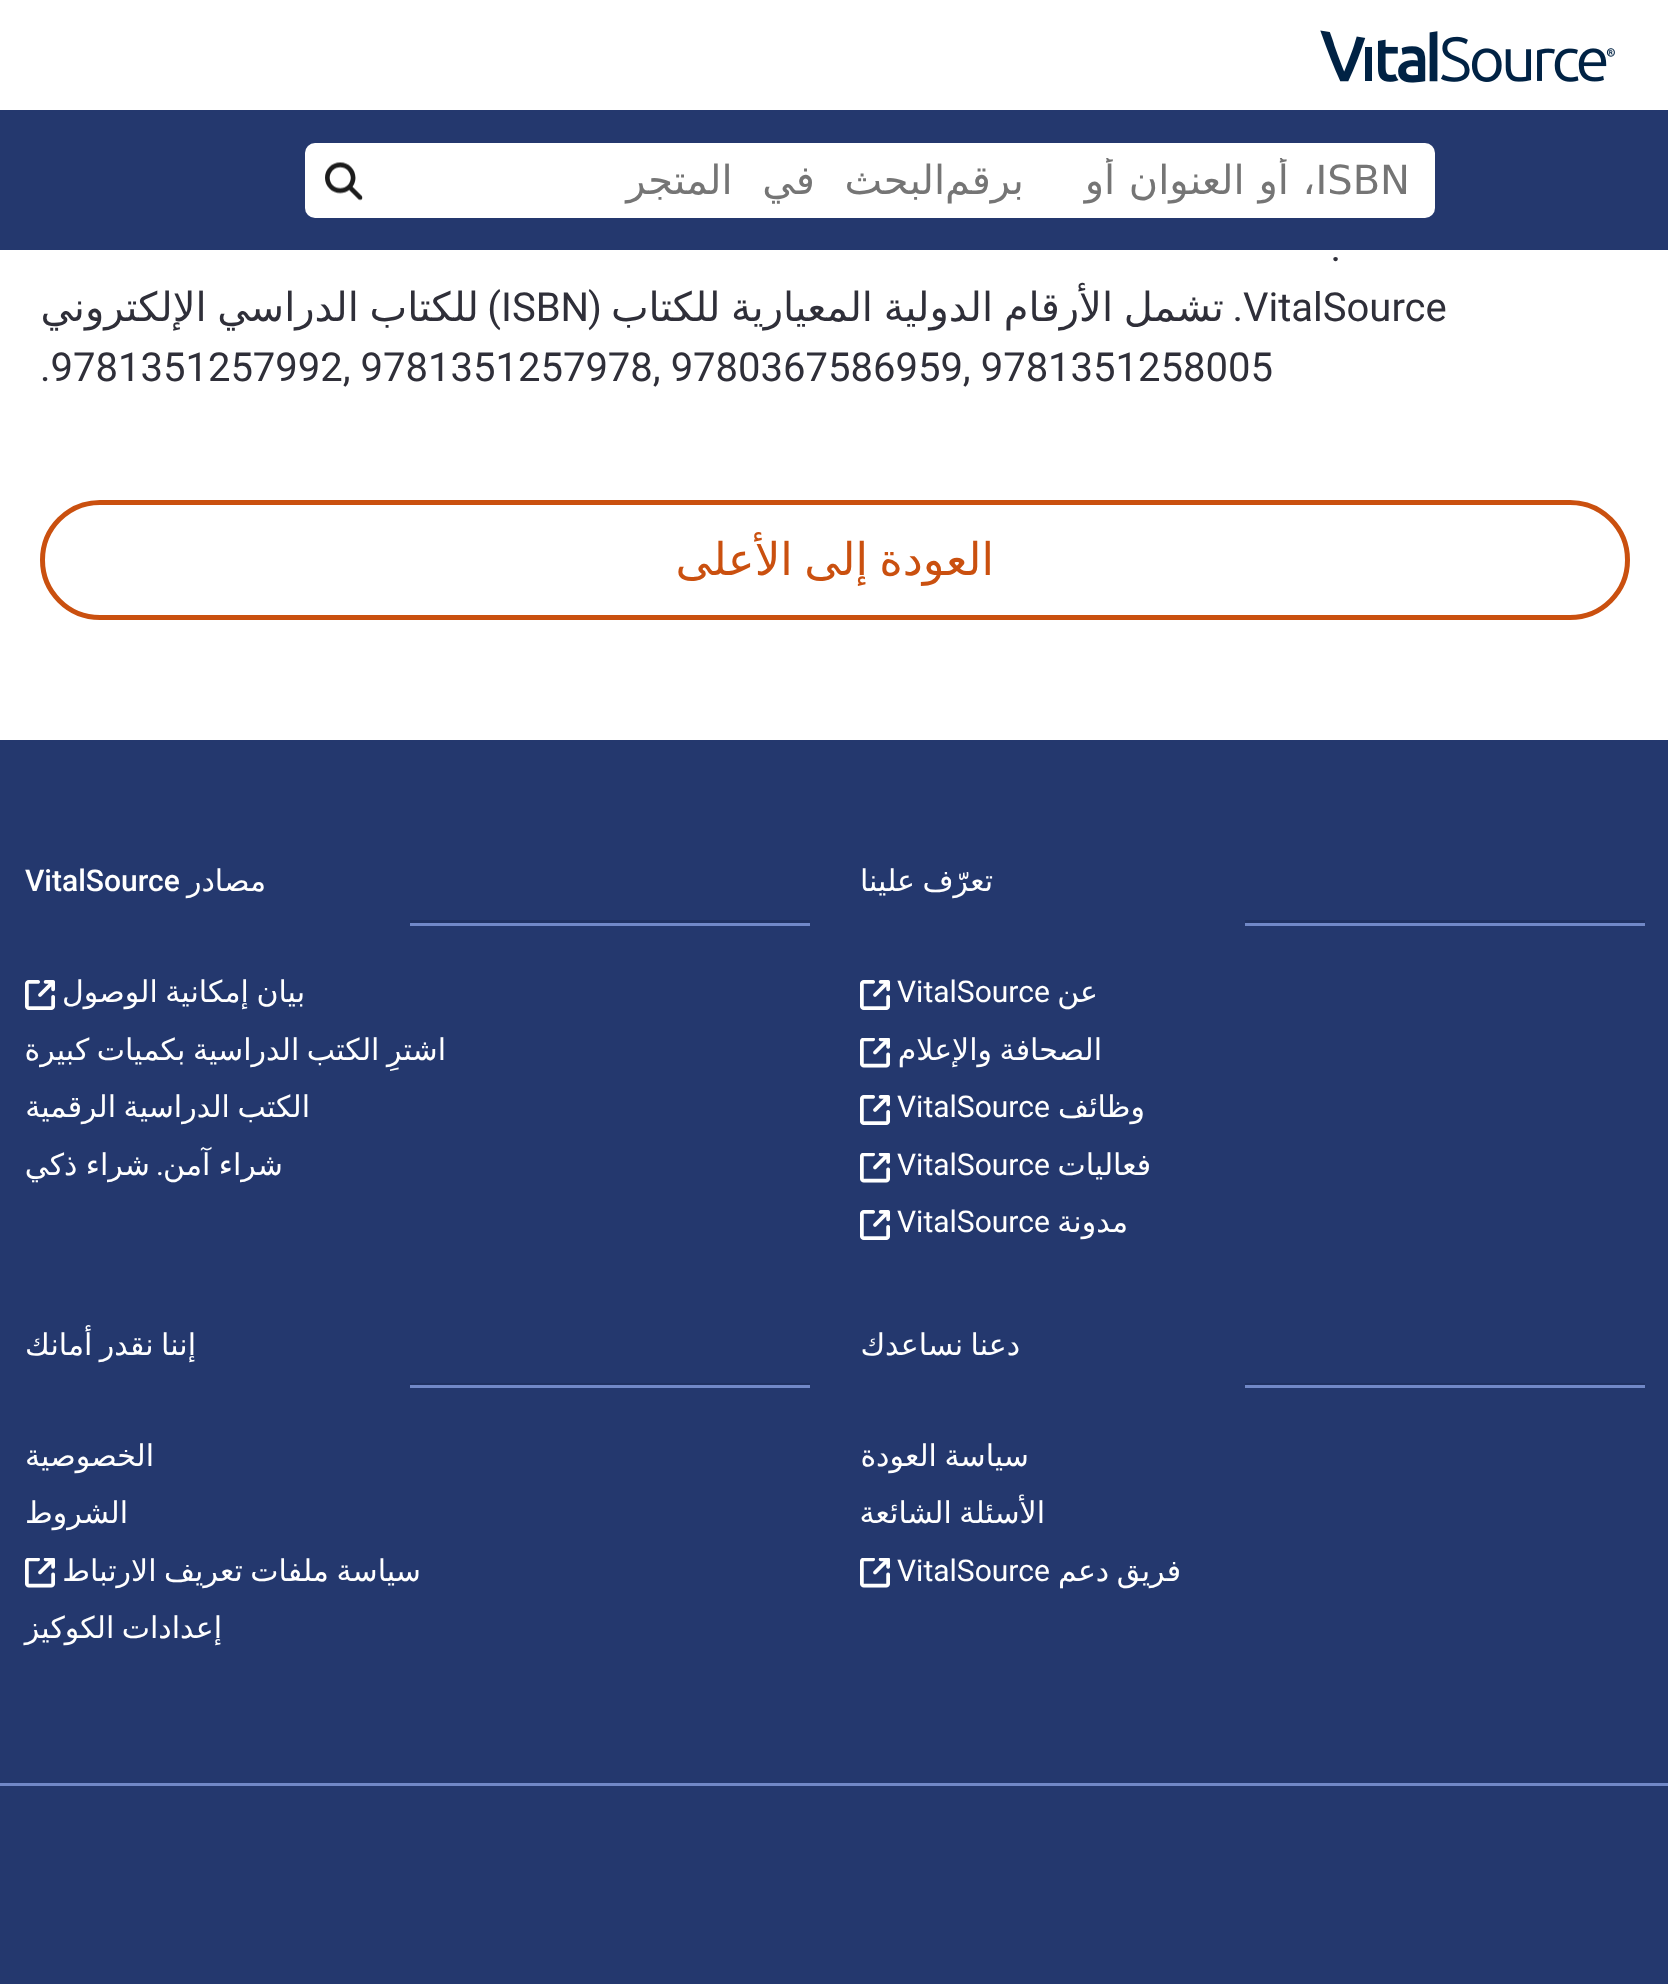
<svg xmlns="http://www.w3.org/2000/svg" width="1668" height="1984">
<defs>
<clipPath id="clip1"><rect x="385" y="158" width="1025" height="47"/></clipPath>
</defs>
<rect width="100%" height="100%" fill="#fff"/>
<image x="1320" y="30" width="295" height="53" href="media/1.png"/>
<rect y="110" width="1668" height="140" fill="#24386e"/>
<rect x="305" y="143" width="1130" height="75" rx="10" fill="#fff"/>
<g clip-path="url(#clip1)">
<text x="1410" y="194" word-spacing="1" style="font-family:DejaVu Sans;font-size:40px;direction:rtl;fill:#757575">ISBN، أو العنوان أو</text>
</g>
<text x="1024" y="194" style="font-family:DejaVu Sans;font-size:40px;direction:rtl;fill:#757575">برقم</text>
<text x="945" y="194" word-spacing="17" style="font-family:DejaVu Sans;font-size:40px;direction:rtl;fill:#757575">البحث في المتجر</text>
<image x="325" y="162" width="38" height="39" href="media/2.png"/>
<text x="1341" y="261" style="font-family:Roboto;font-size:40px;direction:rtl;fill:#2f2f39">.</text>
<text x="1243" y="321" style="font-family:Roboto;font-size:40px;fill:#2f2f39">VitalSource</text>
<text x="1243" y="321" style="font-family:Roboto;font-size:40px;direction:rtl;fill:#2f2f39">.</text>
<text x="1224" y="321" word-spacing="-2" style="font-family:DejaVu Sans;font-size:40px;direction:rtl;fill:#2f2f39">تشمل الأرقام الدولية المعيارية للكتاب</text>
<text x="602" y="321" style="font-family:Roboto;font-size:40px;direction:rtl;fill:#2f2f39">(</text>
<text x="501" y="321" style="font-family:Roboto;font-size:40px;fill:#2f2f39">ISBN</text>
<text x="501" y="321" style="font-family:Roboto;font-size:40px;direction:rtl;fill:#2f2f39">)</text>
<text x="479" y="321" word-spacing="-2" style="font-family:DejaVu Sans;font-size:40px;direction:rtl;fill:#2f2f39">للكتاب الدراسي الإلكتروني</text>
<text x="40" y="381" style="font-family:Roboto;font-size:40px;fill:#2f2f39">.9781351257992, 9781351257978, 9780367586959, 9781351258005</text>
<rect x="42.5" y="502.5" width="1585" height="115" rx="57.5" fill="none" stroke="#ca500f" stroke-width="5"/>
<text x="994" y="575" word-spacing="-3" style="font-family:DejaVu Sans;font-size:45px;direction:rtl;fill:#ca500f">العودة إلى الأعلى</text>
<rect y="740" width="1668" height="1043" fill="#24386e"/>
<text x="993" y="891" word-spacing="-2" style="font-family:DejaVu Sans;font-size:30px;direction:rtl;fill:#fff">تعرّف علينا</text>
<rect x="1245" y="920" width="400" height="3" fill="#203263"/>
<rect x="1245" y="923" width="400" height="3" fill="#7188c7"/>
<text x="1098" y="1002" style="font-family:DejaVu Sans;font-size:30px;direction:rtl;fill:#fff">عن</text>
<text x="897" y="1002" style="font-family:Roboto;font-size:30px;fill:#fff">VitalSource</text>
<image x="860" y="980" width="30" height="30" href="media/3.png"/>
<text x="1102" y="1060" word-spacing="-2" style="font-family:DejaVu Sans;font-size:30px;direction:rtl;fill:#fff">الصحافة والإعلام</text>
<image x="860" y="1038" width="30" height="30" href="media/4.png"/>
<text x="1145" y="1117" style="font-family:DejaVu Sans;font-size:30px;direction:rtl;fill:#fff">وظائف</text>
<text x="897" y="1117" style="font-family:Roboto;font-size:30px;fill:#fff">VitalSource</text>
<image x="860" y="1095" width="30" height="30" href="media/3.png"/>
<text x="1151" y="1175" style="font-family:DejaVu Sans;font-size:30px;direction:rtl;fill:#fff">فعاليات</text>
<text x="897" y="1175" style="font-family:Roboto;font-size:30px;fill:#fff">VitalSource</text>
<image x="860" y="1153" width="30" height="30" href="media/4.png"/>
<text x="1128" y="1232" style="font-family:DejaVu Sans;font-size:30px;direction:rtl;fill:#fff">مدونة</text>
<text x="897" y="1232" style="font-family:Roboto;font-size:30px;fill:#fff">VitalSource</text>
<image x="860" y="1210" width="30" height="30" href="media/3.png"/>
<text x="266" y="891" style="font-family:DejaVu Sans;font-size:30px;direction:rtl;fill:#fff">مصادر</text>
<text x="25" y="891" style="font-family:Roboto;font-size:30px;font-weight:500;fill:#fff">VitalSource</text>
<rect x="410" y="920" width="400" height="3" fill="#203263"/>
<rect x="410" y="923" width="400" height="3" fill="#7188c7"/>
<text x="305" y="1002" word-spacing="-2" style="font-family:DejaVu Sans;font-size:30px;direction:rtl;fill:#fff">بيان إمكانية الوصول</text>
<image x="25" y="980" width="30" height="30" href="media/3.png"/>
<text x="446" y="1060" word-spacing="-2" style="font-family:DejaVu Sans;font-size:30px;direction:rtl;fill:#fff">اشترِ الكتب الدراسية بكميات كبيرة</text>
<text x="310" y="1117" word-spacing="-2" style="font-family:DejaVu Sans;font-size:30px;direction:rtl;fill:#fff">الكتب الدراسية الرقمية</text>
<text x="283" y="1175" word-spacing="-1" style="font-family:DejaVu Sans;font-size:30px;direction:rtl;fill:#fff">شراء آمن</text>
<text x="164" y="1175" style="font-family:Roboto;font-size:30px;direction:rtl;fill:#fff">.</text>
<text x="150" y="1175" word-spacing="-1" style="font-family:DejaVu Sans;font-size:30px;direction:rtl;fill:#fff">شراء ذكي</text>
<text x="1020" y="1355" word-spacing="-2" style="font-family:DejaVu Sans;font-size:30px;direction:rtl;fill:#fff">دعنا نساعدك</text>
<rect x="1245" y="1383" width="400" height="2" fill="#203263"/>
<rect x="1245" y="1385" width="400" height="3" fill="#7188c7"/>
<text x="1029" y="1466" word-spacing="-2" style="font-family:DejaVu Sans;font-size:30px;direction:rtl;fill:#fff">سياسة العودة</text>
<text x="1045" y="1523" word-spacing="-2" style="font-family:DejaVu Sans;font-size:30px;direction:rtl;fill:#fff">الأسئلة الشائعة</text>
<text x="1181" y="1581" word-spacing="-2" style="font-family:DejaVu Sans;font-size:30px;direction:rtl;fill:#fff">فريق دعم</text>
<text x="897" y="1581" style="font-family:Roboto;font-size:30px;fill:#fff">VitalSource</text>
<image x="860" y="1558" width="30" height="30" href="media/4.png"/>
<text x="196" y="1355" word-spacing="-2" style="font-family:DejaVu Sans;font-size:30px;direction:rtl;fill:#fff">إننا نقدر أمانك</text>
<rect x="410" y="1383" width="400" height="2" fill="#203263"/>
<rect x="410" y="1385" width="400" height="3" fill="#7188c7"/>
<text x="154" y="1466" style="font-family:DejaVu Sans;font-size:30px;direction:rtl;fill:#fff">الخصوصية</text>
<text x="128" y="1523" style="font-family:DejaVu Sans;font-size:30px;direction:rtl;fill:#fff">الشروط</text>
<text x="421" y="1581" word-spacing="-2" style="font-family:DejaVu Sans;font-size:30px;direction:rtl;fill:#fff">سياسة ملفات تعريف الارتباط</text>
<image x="25" y="1558" width="30" height="30" href="media/4.png"/>
<text x="222" y="1638" word-spacing="-2" style="font-family:DejaVu Sans;font-size:30px;direction:rtl;fill:#fff">إعدادات الكوكيز</text>
<rect y="1786" width="1668" height="198" fill="#24386e"/>
<rect y="1783" width="1668" height="3" fill="#7188c7"/>
</svg>
